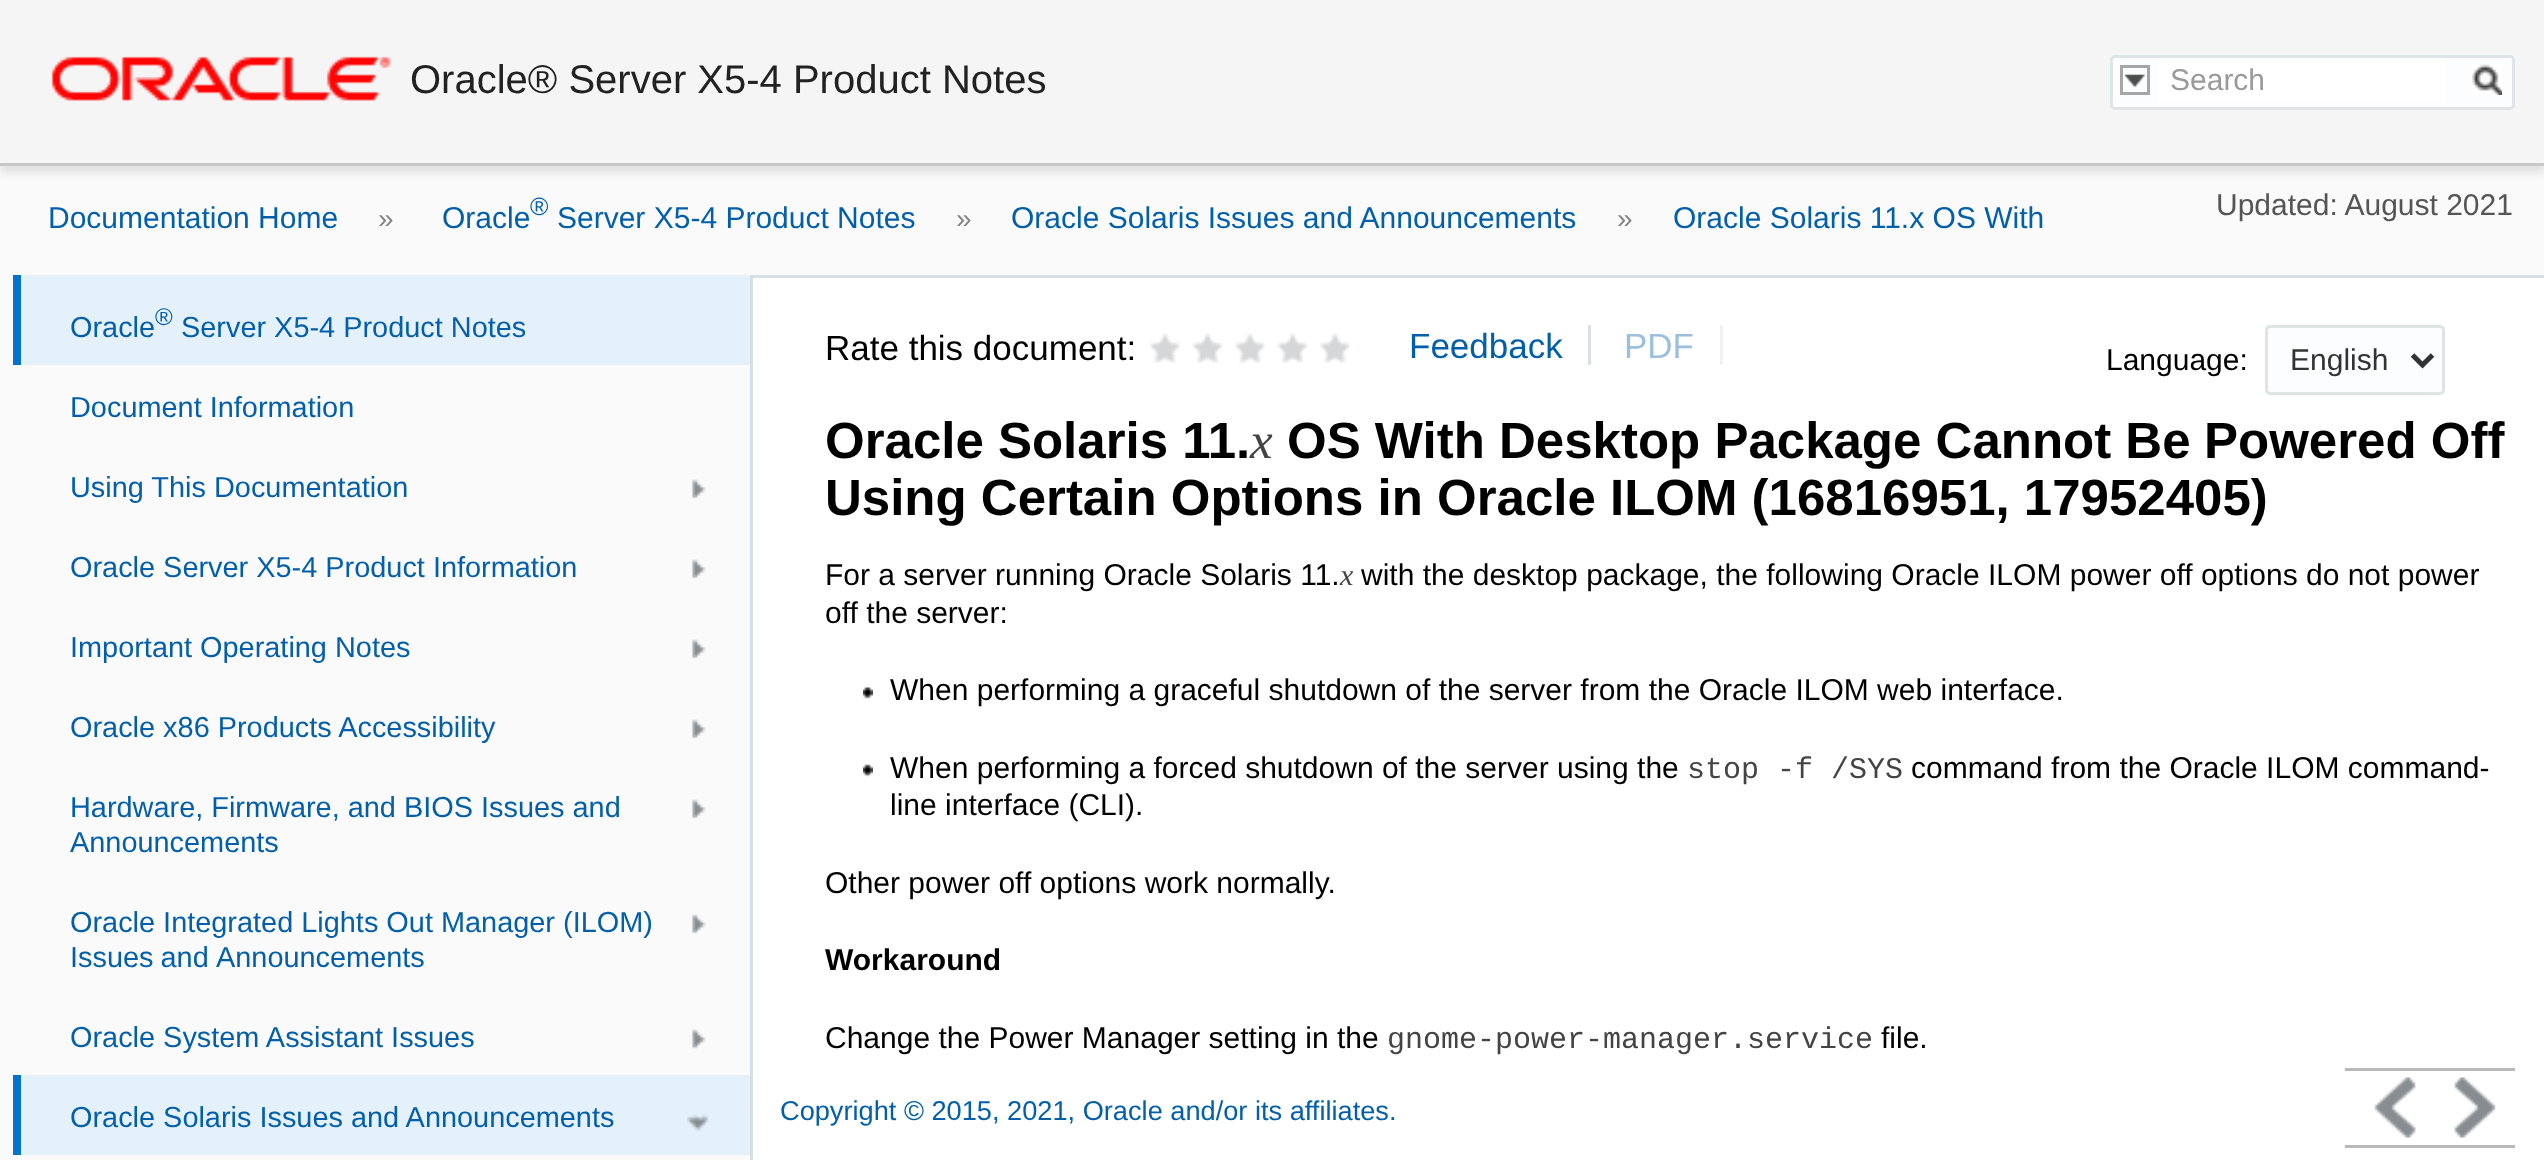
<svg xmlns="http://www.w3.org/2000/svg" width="2544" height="1160">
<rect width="100%" height="100%" fill="#fff"/>
<rect y="166" width="2544" height="109" fill="#fafafa"/>
<rect y="8" width="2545" height="165" fill="#0000001a" filter="blur(4px)"/>
<rect width="2544" height="163" fill="#f5f5f5"/>
<rect y="163" width="2544" height="3" fill="#c8c8c8"/>
<image x="51" y="56" width="340" height="45" href="media/1.png"/>
<text x="410" y="93" style="font-family:Liberation Sans;font-size:40px;fill:#222">Oracle® Server X5-4 Product Notes</text>
<rect x="2111.5" y="56.5" width="402" height="52" rx="3.5" fill="#fcfdfe" stroke="#dfe4e7" stroke-width="3"/>
<image x="2125" y="74" width="20" height="14" href="media/2.png"/>
<rect x="2121.5" y="66.5" width="27" height="27" fill="none" stroke="#a6a6a6" stroke-width="3"/>
<rect x="2158" y="58" width="287" height="45" fill="#fff"/>
<text x="2170" y="90" style="font-family:Liberation Sans;font-size:30px;fill:#9a9a9a">Search</text>
<image x="2472" y="64" width="30" height="31" href="media/3.png"/>
<rect x="753" y="275" width="1791" height="3" fill="#d6dfe6"/>
<text x="48" y="228" style="font-family:Liberation Sans;font-size:30px;fill:#045fab">Documentation Home</text>
<text x="378" y="228" style="font-family:Liberation Sans;font-size:28px;fill:#848282">»</text>
<text x="442" y="228" style="font-family:Liberation Sans;font-size:30px;fill:#045fab">Oracle</text>
<text x="530" y="215" style="font-family:Liberation Sans;font-size:25px;fill:#045fab">®</text>
<text x="557" y="228" style="font-family:Liberation Sans;font-size:30px;fill:#045fab">Server X5-4 Product Notes</text>
<text x="956" y="228" style="font-family:Liberation Sans;font-size:28px;fill:#848282">»</text>
<text x="1011" y="228" style="font-family:Liberation Sans;font-size:30px;fill:#045fab">Oracle Solaris Issues and Announcements</text>
<text x="1617" y="228" style="font-family:Liberation Sans;font-size:28px;fill:#848282">»</text>
<text x="1673" y="228" style="font-family:Liberation Sans;font-size:30px;fill:#045fab">Oracle Solaris 11.x OS With</text>
<text x="2216" y="215" style="font-family:Liberation Sans;font-size:30px;fill:#555">Updated: August 2021</text>
<rect y="275" width="750" height="885" fill="#fafafa"/>
<rect x="750" y="275" width="3" height="885" fill="#d6dfe6"/>
<rect x="21" y="275" width="729" height="90" fill="#e4f0fa"/>
<rect x="13" y="275" width="8" height="90" fill="#0572ce"/>
<text x="70" y="337" style="font-family:Liberation Sans;font-size:28.9px;fill:#045fab">Oracle</text>
<text x="155" y="325" style="font-family:Liberation Sans;font-size:24px;fill:#045fab">®</text>
<text x="181" y="337" style="font-family:Liberation Sans;font-size:28.9px;fill:#045fab">Server X5-4 Product Notes</text>
<text x="70" y="417" style="font-family:Liberation Sans;font-size:28.9px;fill:#045fab">Document Information</text>
<image x="691" y="479" width="15" height="20" href="media/4.png"/>
<text x="70" y="497" style="font-family:Liberation Sans;font-size:28.9px;fill:#045fab">Using This Documentation</text>
<image x="691" y="559" width="15" height="20" href="media/4.png"/>
<text x="70" y="577" style="font-family:Liberation Sans;font-size:28.9px;fill:#045fab">Oracle Server X5-4 Product Information</text>
<image x="691" y="639" width="15" height="20" href="media/4.png"/>
<text x="70" y="657" style="font-family:Liberation Sans;font-size:28.9px;fill:#045fab">Important Operating Notes</text>
<image x="691" y="719" width="15" height="20" href="media/4.png"/>
<text x="70" y="737" style="font-family:Liberation Sans;font-size:28.9px;fill:#045fab">Oracle x86 Products Accessibility</text>
<image x="691" y="799" width="15" height="20" href="media/4.png"/>
<text x="70" y="817" style="font-family:Liberation Sans;font-size:28.9px;fill:#045fab">Hardware, Firmware, and BIOS Issues and</text>
<text x="70" y="852" style="font-family:Liberation Sans;font-size:28.9px;fill:#045fab">Announcements</text>
<image x="691" y="914" width="15" height="20" href="media/4.png"/>
<text x="70" y="932" style="font-family:Liberation Sans;font-size:28.9px;fill:#045fab">Oracle Integrated Lights Out Manager (ILOM)</text>
<text x="70" y="967" word-spacing="-1" style="font-family:Liberation Sans;font-size:28.9px;fill:#045fab">Issues and</text>
<text x="216" y="967" style="font-family:Liberation Sans;font-size:28.9px;fill:#045fab">Announcements</text>
<image x="691" y="1029" width="15" height="20" href="media/4.png"/>
<text x="70" y="1047" style="font-family:Liberation Sans;font-size:28.9px;fill:#045fab">Oracle System Assistant Issues</text>
<rect x="21" y="1075" width="729" height="80" fill="#e4f0fa"/>
<image x="687" y="1114" width="22" height="17" href="media/5.png"/>
<rect x="13" y="1075" width="8" height="80" fill="#0572ce"/>
<text x="70" y="1127" style="font-family:Liberation Sans;font-size:28.9px;fill:#045fab">Oracle Solaris Issues and Announcements</text>
<text x="825" y="360" style="font-family:Liberation Sans;font-size:35px;fill:#000">Rate this document:</text>
<image x="1150" y="333" width="30" height="30" href="media/6.png"/>
<image x="1192" y="333" width="31" height="30" href="media/7.png"/>
<image x="1235" y="333" width="30" height="30" href="media/6.png"/>
<image x="1277" y="333" width="31" height="30" href="media/7.png"/>
<image x="1320" y="333" width="30" height="30" href="media/6.png"/>
<rect x="1588" y="325" width="3" height="40" fill="#d9dfe3"/>
<text x="1409" y="358" style="font-family:Liberation Sans;font-size:35px;fill:#045fab">Feedback</text>
<rect x="1720" y="325" width="3" height="40" fill="#f0f2f4"/>
<text x="1624" y="358" style="font-family:Liberation Sans;font-size:35px;fill:#9bbfdd">PDF</text>
<text x="2106" y="370" style="font-family:Liberation Sans;font-size:30px;fill:#000">Language:</text>
<rect x="2266.5" y="326.5" width="177" height="67" rx="3.5" fill="#fcfdfe" stroke="#dfe4e7" stroke-width="3"/>
<path d="M2412.5 355l10 10l10-10" fill="none" stroke="#333" stroke-width="5"/>
<text x="2290" y="370" style="font-family:Liberation Sans;font-size:30px;fill:#333">English</text>
<text x="825" y="458" style="font-family:Liberation Sans;font-size:51px;font-weight:bold;fill:#000">Oracle Solaris 11.</text>
<text x="1250" y="458" style="font-family:Liberation Serif;font-size:51px;font-style:italic;fill:#444">x</text>
<text x="1287" y="458" style="font-family:Liberation Sans;font-size:51px;font-weight:bold;fill:#000">OS With Desktop Package Cannot Be</text>
<text x="2204" y="458" style="font-family:Liberation Sans;font-size:51px;font-weight:bold;fill:#000">Powered Off</text>
<text x="825" y="515" style="font-family:Liberation Sans;font-size:51px;font-weight:bold;fill:#000">Using Certain Options in Oracle ILOM (16816951, 17952405)</text>
<text x="825" y="585" style="font-family:Liberation Sans;font-size:30px;fill:#000">For a server running Oracle Solaris 11.</text>
<text x="1340" y="585" style="font-family:Liberation Serif;font-size:30px;font-style:italic;fill:#444">x</text>
<text x="1361" y="585" style="font-family:Liberation Sans;font-size:30px;fill:#000">with the desktop package, the following Oracle ILOM power off options do not power</text>
<text x="825" y="623" style="font-family:Liberation Sans;font-size:30px;fill:#000">off the server:</text>
<image x="863" y="687" width="10" height="12" href="media/8.png"/>
<text x="890" y="700" style="font-family:Liberation Sans;font-size:30px;fill:#000">When performing a graceful shutdown of the server from the Oracle ILOM web interface.</text>
<image x="863" y="764" width="10" height="13" href="media/9.png"/>
<text x="890" y="778" style="font-family:Liberation Sans;font-size:30px;fill:#000">When performing a forced shutdown of the server using the</text>
<text x="1687" y="778" style="font-family:Liberation Mono;font-size:30px;fill:#444">stop -f /SYS</text>
<text x="1911" y="778" style="font-family:Liberation Sans;font-size:30px;fill:#000">command from the Oracle ILOM command-</text>
<text x="890" y="815" style="font-family:Liberation Sans;font-size:30px;fill:#000">line interface (CLI).</text>
<text x="825" y="893" style="font-family:Liberation Sans;font-size:30px;fill:#000">Other power off options work normally.</text>
<text x="825" y="970" style="font-family:Liberation Sans;font-size:30px;font-weight:bold;fill:#000">Workaround</text>
<text x="825" y="1048" style="font-family:Liberation Sans;font-size:30px;fill:#000">Change the Power Manager setting in the</text>
<text x="1387" y="1048" style="font-family:Liberation Mono;font-size:30px;fill:#444">gnome-power-manager.service</text>
<text x="1881" y="1048" style="font-family:Liberation Sans;font-size:30px;fill:#000">file.</text>
<text x="780" y="1120" style="font-family:Liberation Sans;font-size:27.2px;fill:#045fab">Copyright © 2015, 2021, Oracle and/or its affiliates.</text>
<rect x="2345" y="1068" width="170" height="3" fill="#b9b9b9"/>
<rect x="2345" y="1145" width="170" height="3" fill="#b9b9b9"/>
<image x="2374" y="1077" width="42" height="61" href="media/10.png"/>
<image x="2454" y="1077" width="42" height="61" href="media/11.png"/>
</svg>
